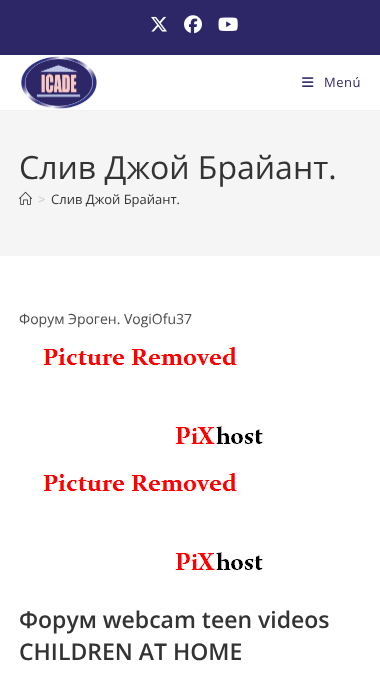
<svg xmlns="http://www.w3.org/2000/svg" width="380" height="687">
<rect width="100%" height="100%" fill="#fff"/>
<rect width="380" height="55" fill="#2d2767"/>
<image x="151" y="16" width="16" height="16" href="media/1.png"/>
<image x="184" y="15" width="18" height="19" href="media/2.png"/>
<image x="218" y="17" width="20" height="14" href="media/3.png"/>
<rect y="110" width="380" height="1" fill="#f1f1f1"/>
<image x="21" y="56" width="76" height="53" href="media/4.png"/>
<image x="302" y="77" width="12" height="10" href="media/5.png"/>
<text x="324" y="87" style="font-family:Open Sans;font-size:13px;letter-spacing:0.5px;fill:#2d2767">Menú</text>
<rect y="111" width="380" height="145" fill="#f5f5f5"/>
<text x="19" y="179" style="font-family:Open Sans;font-size:32px;fill:#333">Слив Джой Брайант.</text>
<image x="19" y="191" width="13" height="14" href="media/6.png"/>
<text x="38" y="204" style="font-family:Open Sans;font-size:13px;fill:#c6c6c6">&gt;</text>
<text x="51" y="204" style="font-family:Open Sans;font-size:13px;fill:#333">Слив Джой Брайант.</text>
<text x="19" y="324" style="font-family:Open Sans;font-size:14px;fill:#4a4a4a">Форум Эроген. VogiOfu37</text>
<image x="43" y="347" width="220" height="97" href="media/7.png"/>
<image x="43" y="473" width="220" height="97" href="media/7.png"/>
<text x="19" y="628" style="font-family:Open Sans;font-size:23px;font-weight:600;fill:#333">Форум webcam teen videos</text>
<text x="19" y="660" style="font-family:Open Sans;font-size:23px;font-weight:600;fill:#333">CHILDREN AT HOME</text>
</svg>
